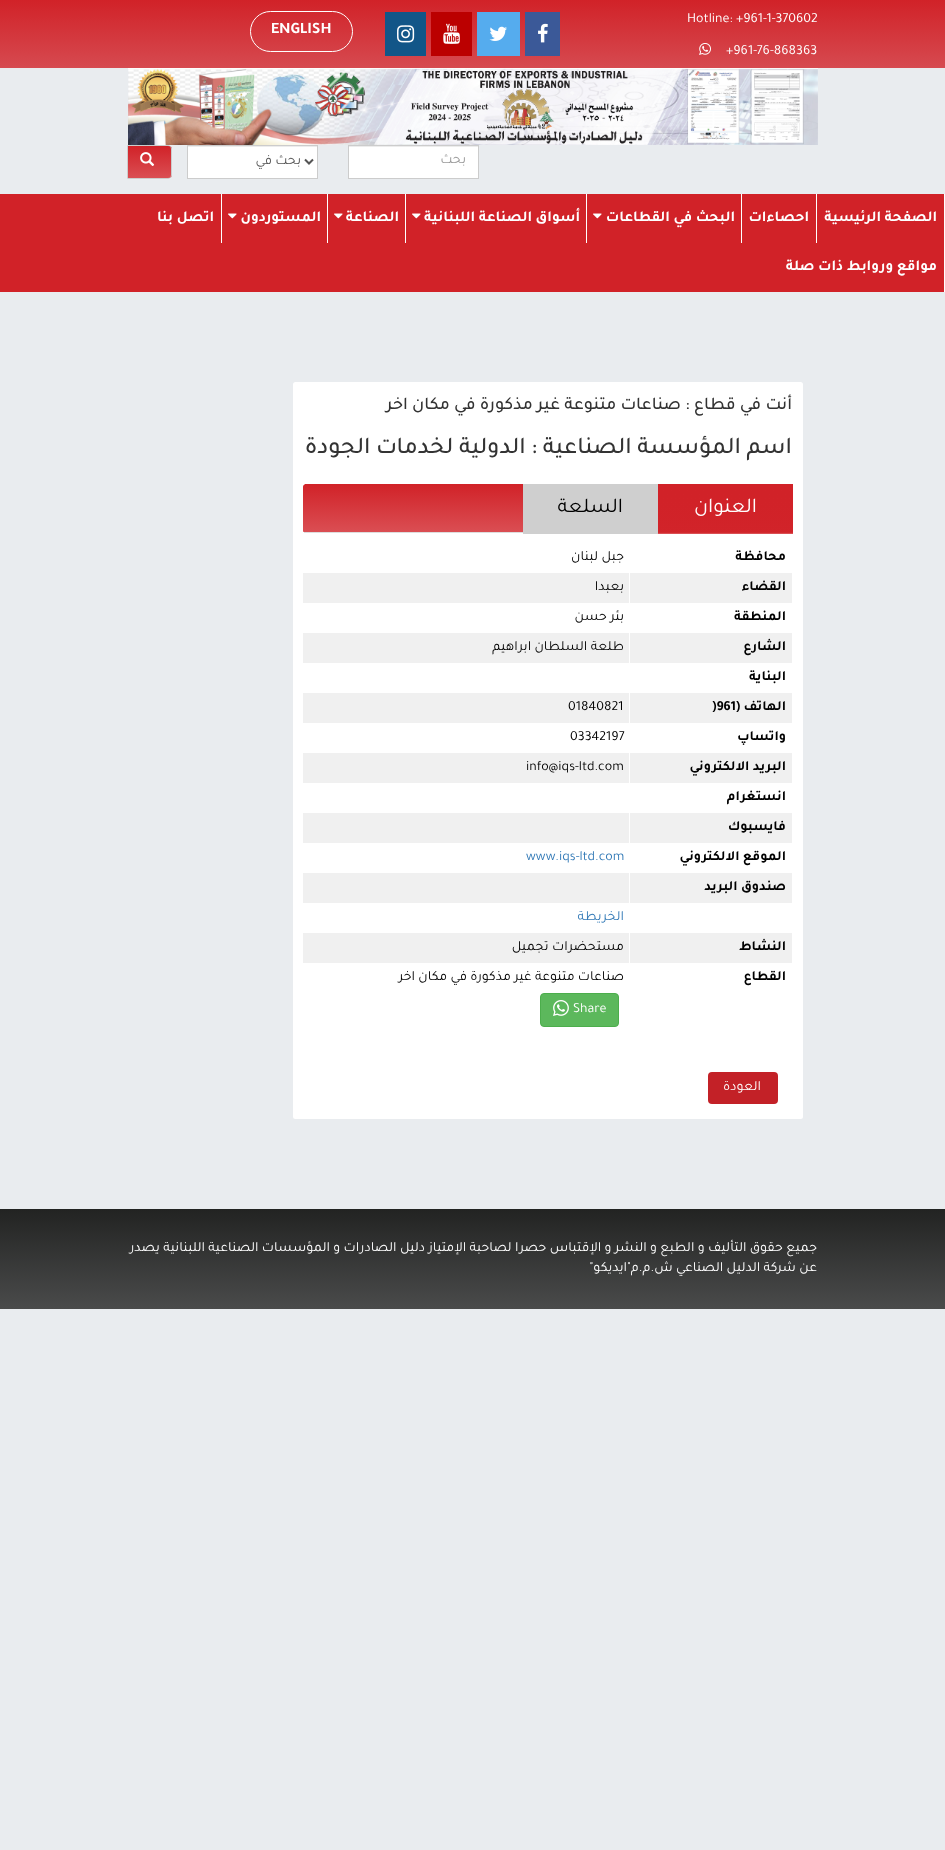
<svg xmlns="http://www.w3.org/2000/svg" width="945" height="1850">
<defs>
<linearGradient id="g1" gradientUnits="userSpaceOnUse" x1="473" y1="68" x2="473" y2="0"><stop offset="0" stop-color="#d64a50"/><stop offset="1" stop-color="#d12228"/></linearGradient>
<clipPath id="clip1"><path d="M127 145h41c2 0 4 2 4 4v26c0 2-2 4-4 4h-41z"/></clipPath>
<linearGradient id="g2" gradientUnits="userSpaceOnUse" x1="150" y1="178" x2="150" y2="146"><stop offset="0" stop-color="#d12228" stop-opacity="0.8"/><stop offset="1" stop-color="#d12228"/></linearGradient>
<clipPath id="clip2"><rect x="303" y="484" width="490" height="49" rx="2.5"/></clipPath>
<linearGradient id="g3" gradientUnits="userSpaceOnUse" x1="548" y1="532" x2="548" y2="484"><stop offset="0" stop-color="#da4e53"/><stop offset="1" stop-color="#d12228"/></linearGradient>
<linearGradient id="g4" gradientUnits="userSpaceOnUse" x1="726" y1="533" x2="726" y2="484"><stop offset="0" stop-color="#d12228" stop-opacity="0.8"/><stop offset="1" stop-color="#d12228"/></linearGradient>
<linearGradient id="g5" gradientUnits="userSpaceOnUse" x1="726" y1="534" x2="726" y2="484"><stop offset="0" stop-color="#d12228" stop-opacity="0.8"/><stop offset="1" stop-color="#d12228"/></linearGradient>
<linearGradient id="g6" gradientUnits="userSpaceOnUse" x1="473" y1="1309" x2="473" y2="1209"><stop offset="0" stop-color="#4a4b4b"/><stop offset="1" stop-color="#222322"/></linearGradient>
</defs>
<rect width="100%" height="100%" fill="#e9ecef"/>
<rect width="945" height="68" fill="url(#g1)"/>
<text x="687" y="22" style="font-family:Tajawal;font-size:14px;fill:#fff">Hotline: +961-1-370602</text>
<text x="726" y="54" style="font-family:Tajawal;font-size:14px;fill:#fff">+961-76-868363</text>
<image x="699" y="43" width="12" height="12" href="media/1.png"/>
<rect x="525" y="12" width="35" height="44" fill="#3b5998"/>
<image x="538" y="23" width="10" height="20" href="media/2.png"/>
<rect x="477" y="12" width="43" height="44" fill="#55acee"/>
<image x="489" y="26" width="18" height="15" href="media/3.png"/>
<rect x="431" y="12" width="41" height="44" fill="#b00"/>
<image x="443" y="23" width="17" height="21" href="media/4.png"/>
<rect x="385" y="12" width="41" height="44" fill="#125688"/>
<image x="397" y="25" width="18" height="18" href="media/5.png"/>
<rect x="250.5" y="11.5" width="102" height="40" rx="20" fill="none" stroke="#fff"/>
<text x="271" y="33" style="font-family:Tajawal;font-size:16px;font-weight:bold;fill:#fff">ENGLISH</text>
<image x="128" y="68" width="690" height="77" href="media/6.png"/>
<rect x="349" y="147" width="129" height="31" fill="#fff"/>
<rect x="349" y="146" width="129" height="1" fill="#ececec"/>
<rect x="348.5" y="145.5" width="130" height="33" fill="none" stroke="#ccc"/>
<text x="466" y="163" style="font-family:Tajawal;font-size:14px;direction:rtl;fill:#999">بحث</text>
<rect x="188" y="147" width="129" height="31" fill="#fff"/>
<rect x="188" y="146" width="129" height="1" fill="#ececec"/>
<rect x="187.5" y="145.5" width="130" height="33" fill="none" stroke="#ccc"/>
<path d="M305 159.5l4 4l4-4" fill="none" stroke="#555" stroke-width="2"/>
<text x="301" y="164" style="font-family:Tajawal;font-size:14px;direction:rtl;fill:#555">بحث في</text>
<path d="M127 145h41c2 0 4 2 4 4v26c0 2-2 4-4 4h-41z" fill="#fff"/>
<g clip-path="url(#clip1)">
<rect x="128" y="146" width="44" height="32" fill="url(#g2)"/>
</g>
<path d="M127.5 145.5h40.5c2 0 3.5 1.5 3.5 3.5v26c0 2-1.5 3.5-3.5 3.5h-40.5z" fill="none" stroke="#ccc"/>
<image x="140" y="152" width="15" height="14" href="media/7.png"/>
<rect y="194" width="944" height="98" fill="#d12228"/>
<rect x="944" y="194" width="1" height="98" fill="#fff"/>
<text x="937" y="221" style="font-family:Tajawal;font-size:15px;font-weight:bold;direction:rtl;fill:#fff">الصفحة الرئيسية</text>
<rect x="816" y="194" width="1" height="49" fill="#fff"/>
<text x="809" y="221" style="font-family:Tajawal;font-size:15px;font-weight:bold;direction:rtl;fill:#fff">احصاءات</text>
<rect x="741" y="194" width="1" height="49" fill="#fff"/>
<text x="735" y="221" style="font-family:Tajawal;font-size:15px;font-weight:bold;direction:rtl;fill:#fff">البحث في القطاعات</text>
<image x="593" y="213" width="9" height="6" href="media/8.png"/>
<rect x="586" y="194" width="1" height="49" fill="#fff"/>
<text x="580" y="221" style="font-family:Tajawal;font-size:15px;font-weight:bold;direction:rtl;fill:#fff">أسواق الصناعة اللبنانية</text>
<image x="412" y="213" width="9" height="6" href="media/8.png"/>
<rect x="405" y="194" width="1" height="49" fill="#fff"/>
<text x="399" y="221" style="font-family:Tajawal;font-size:15px;font-weight:bold;direction:rtl;fill:#fff">الصناعة</text>
<image x="334" y="213" width="9" height="6" href="media/8.png"/>
<rect x="327" y="194" width="1" height="49" fill="#fff"/>
<text x="321" y="221" style="font-family:Tajawal;font-size:15px;font-weight:bold;direction:rtl;fill:#fff">المستوردون</text>
<image x="228" y="213" width="9" height="6" href="media/8.png"/>
<rect x="221" y="194" width="1" height="49" fill="#fff"/>
<text x="214" y="221" style="font-family:Tajawal;font-size:15px;font-weight:bold;direction:rtl;fill:#fff">اتصل بنا</text>
<text x="937" y="270" style="font-family:Tajawal;font-size:15px;font-weight:bold;direction:rtl;fill:#fff">مواقع وروابط ذات صلة</text>
<rect x="293" y="382" width="510" height="737" rx="2.5" fill="#fff"/>
<text x="792" y="409" style="font-family:Tajawal;font-size:18px;font-weight:500;direction:rtl;fill:#333">أنت في قطاع : صناعات متنوعة غير مذكورة في مكان اخر</text>
<text x="792" y="453" style="font-family:Tajawal;font-size:24px;font-weight:500;direction:rtl;fill:#333">اسم المؤسسة الصناعية : الدولية لخدمات الجودة</text>
<g clip-path="url(#clip2)">
<path d="M305.5 484h485c1.5 0 2.5 1 2.5 2.5v45.5h-490v-45.5c0-1.5 1-2.5 2.5-2.5z" fill="url(#g3)"/>
</g>
<rect x="304" y="532" width="488" height="1" fill="#ddd"/>
<rect x="658" y="485" width="135" height="48" fill="url(#g4)"/>
<rect x="658" y="484" width="135" height="50" fill="url(#g5)"/>
<text x="757" y="512" style="font-family:Tajawal;font-size:21px;direction:rtl;fill:#fff">العنوان</text>
<rect x="523" y="484" width="135" height="50" fill="#cfcfcf"/>
<text x="623" y="512" style="font-family:Tajawal;font-size:21px;direction:rtl;fill:#000">السلعة</text>
<text x="786" y="560" style="font-family:Tajawal;font-size:14px;font-weight:bold;direction:rtl;fill:#000">محافظة</text>
<text x="624" y="560" style="font-family:Tajawal;font-size:14px;direction:rtl;fill:#000">جبل لبنان</text>
<rect x="303" y="573" width="489" height="30" fill="#f0f0f0"/>
<text x="786" y="590" style="font-family:Tajawal;font-size:14px;font-weight:bold;direction:rtl;fill:#000">القضاء</text>
<rect x="629" y="572" width="1" height="31" fill="#fff"/>
<text x="624" y="590" style="font-family:Tajawal;font-size:14px;direction:rtl;fill:#000">بعبدا</text>
<text x="786" y="620" style="font-family:Tajawal;font-size:14px;font-weight:bold;direction:rtl;fill:#000">المنطقة</text>
<text x="624" y="620" style="font-family:Tajawal;font-size:14px;direction:rtl;fill:#000">بئر حسن</text>
<rect x="303" y="633" width="489" height="30" fill="#f0f0f0"/>
<text x="786" y="650" style="font-family:Tajawal;font-size:14px;font-weight:bold;direction:rtl;fill:#000">الشارع</text>
<rect x="629" y="632" width="1" height="31" fill="#fff"/>
<text x="624" y="650" style="font-family:Tajawal;font-size:14px;direction:rtl;fill:#000">طلعة السلطان ابراهيم</text>
<text x="786" y="680" style="font-family:Tajawal;font-size:14px;font-weight:bold;direction:rtl;fill:#000">البناية</text>
<rect x="303" y="693" width="489" height="30" fill="#f0f0f0"/>
<text x="786" y="710" style="font-family:Tajawal;font-size:14px;font-weight:bold;direction:rtl;fill:#000">الهاتف (</text>
<text x="712" y="710" style="font-family:Tajawal;font-size:14px;font-weight:bold;fill:#000">)961</text>
<rect x="629" y="692" width="1" height="31" fill="#fff"/>
<text x="568" y="710" style="font-family:Tajawal;font-size:14px;fill:#000">01840821</text>
<text x="786" y="740" style="font-family:Tajawal;font-size:14px;font-weight:bold;direction:rtl;fill:#000">واتساپ</text>
<text x="570" y="740" style="font-family:Tajawal;font-size:14px;fill:#000">03342197</text>
<rect x="303" y="753" width="489" height="30" fill="#f0f0f0"/>
<text x="786" y="770" style="font-family:Tajawal;font-size:14px;font-weight:bold;direction:rtl;fill:#000">البريد الالكتروني</text>
<rect x="629" y="752" width="1" height="31" fill="#fff"/>
<text x="526" y="770" style="font-family:Tajawal;font-size:14px;fill:#000">info@iqs-ltd.com</text>
<text x="786" y="800" style="font-family:Tajawal;font-size:14px;font-weight:bold;direction:rtl;fill:#000">انستغرام</text>
<rect x="303" y="813" width="489" height="30" fill="#f0f0f0"/>
<text x="786" y="830" style="font-family:Tajawal;font-size:14px;font-weight:bold;direction:rtl;fill:#000">فايسبوك</text>
<rect x="629" y="812" width="1" height="31" fill="#fff"/>
<text x="786" y="860" style="font-family:Tajawal;font-size:14px;font-weight:bold;direction:rtl;fill:#000">الموقع الالكتروني</text>
<text x="526" y="860" style="font-family:Tajawal;font-size:14px;fill:#337ab7">www.iqs-ltd.com</text>
<rect x="303" y="873" width="489" height="30" fill="#f0f0f0"/>
<text x="786" y="890" style="font-family:Tajawal;font-size:14px;font-weight:bold;direction:rtl;fill:#000">صندوق البريد</text>
<rect x="629" y="872" width="1" height="31" fill="#fff"/>
<text x="624" y="920" style="font-family:Tajawal;font-size:14px;direction:rtl;fill:#337ab7">الخريطة</text>
<rect x="303" y="933" width="489" height="30" fill="#f0f0f0"/>
<text x="786" y="950" style="font-family:Tajawal;font-size:14px;font-weight:bold;direction:rtl;fill:#000">النشاط</text>
<rect x="629" y="932" width="1" height="31" fill="#fff"/>
<text x="624" y="950" style="font-family:Tajawal;font-size:14px;direction:rtl;fill:#000">مستحضرات تجميل</text>
<text x="786" y="980" style="font-family:Tajawal;font-size:14px;font-weight:bold;direction:rtl;fill:#000">القطاع</text>
<text x="624" y="980" style="font-family:Tajawal;font-size:14px;direction:rtl;fill:#000">صناعات متنوعة غير مذكورة في مكان اخر</text>
<rect x="540.5" y="993.5" width="78" height="33" rx="3.5" fill="#5cb85c" stroke="#4cae4c"/>
<text x="573" y="1012" style="font-family:Tajawal;font-size:14px;fill:#fff">Share</text>
<image x="553" y="1000" width="16" height="16" href="media/9.png"/>
<rect x="708" y="1072" width="70" height="32" rx="4" fill="#c32127"/>
<text x="761" y="1090" style="font-family:Tajawal;font-size:14px;direction:rtl;fill:#fff">العودة</text>
<rect y="1209" width="945" height="100" fill="url(#g6)"/>
<text x="817" y="1251" style="font-family:Tajawal;font-size:14px;direction:rtl;fill:#fff">جميع حقوق التأليف و الطبع و النشر و الإقتباس حصرا لصاحبة الإمتياز دليل الصادرات و المؤسسات الصناعية اللبنانية يصدر</text>
<text x="817" y="1271" style="font-family:Tajawal;font-size:14px;direction:rtl;fill:#fff">عن شركة الدليل الصناعي ش.م.م"ايديكو"</text>
</svg>
